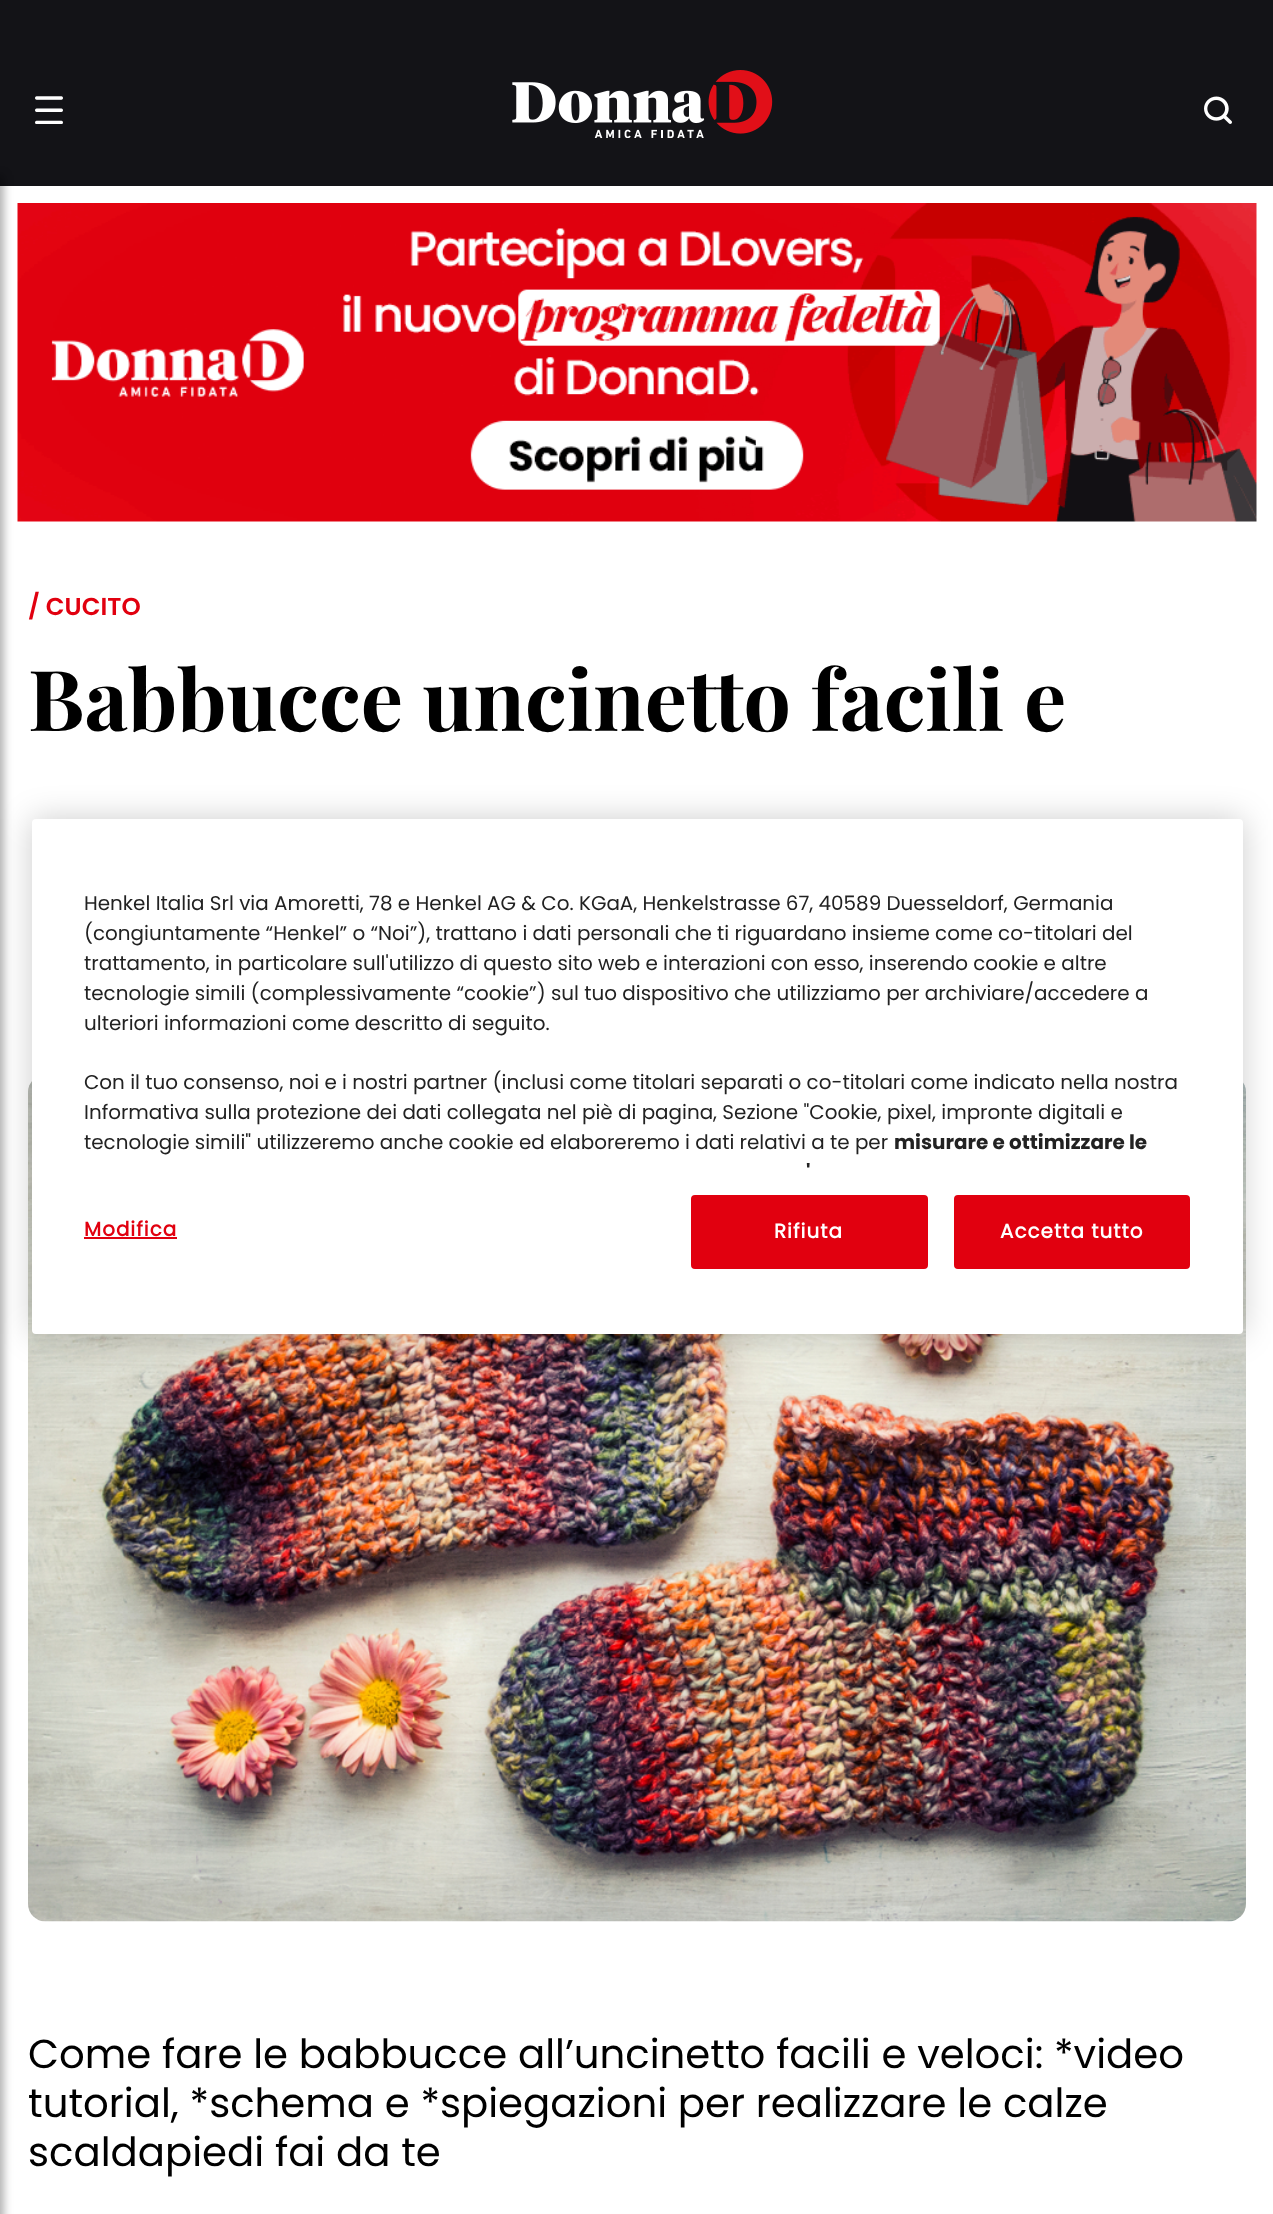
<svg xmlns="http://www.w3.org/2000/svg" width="1273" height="2214">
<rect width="100%" height="100%" fill="#fff"/>
<rect width="1273" height="186" fill="#131317"/>
<image x="35" y="96" width="28" height="28" href="media/1.png"/>
<image x="512" y="70" width="261" height="68" href="media/2.png"/>
<image x="1204" y="96" width="28" height="28" href="media/3.png"/>
<image x="17" y="203" width="1240" height="319" href="media/4.png"/>
<rect x="-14" y="175" width="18" height="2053" fill="#0000004d" filter="blur(4.5px)"/>
<text x="28" y="615" style="font-family:Poppins;font-size:24.5px;font-weight:600;fill:#e1000f">/ CUCITO</text>
<text x="28" y="731" style="font-family:Playfair Display;font-size:84px;font-weight:bold;fill:#000">Babbucce uncinetto facili e</text>
<image x="28" y="1081" width="1218" height="841" href="media/5.png"/>
<text x="28" y="2068" style="font-family:Poppins;font-size:40.25px;fill:#000">Come fare le babbucce all’uncinetto facili e veloci: *video</text>
<text x="28" y="2117" style="font-family:Poppins;font-size:40.25px;fill:#000">tutorial, *schema e *spiegazioni per realizzare le calze</text>
<text x="28" y="2166" style="font-family:Poppins;font-size:40.25px;fill:#000">scaldapiedi fai da te</text>
<rect x="32" y="819" width="1211" height="515" rx="4" fill="#00000033" filter="blur(16px)"/>
<rect x="32" y="819" width="1211" height="515" rx="4" fill="#fff"/>
<text x="84" y="910" style="font-family:Poppins;font-size:19.92px;fill:#222">Henkel Italia Srl via Amoretti, 78 e Henkel AG &amp; Co. KGaA, Henkelstrasse 67, 40589 Duesseldorf, Germania</text>
<text x="84" y="940" style="font-family:Poppins;font-size:19.92px;fill:#222">(congiuntamente “Henkel” o “Noi”), trattano i dati personali che ti riguardano insieme come co-titolari del</text>
<text x="84" y="970" style="font-family:Poppins;font-size:19.92px;fill:#222">trattamento, in particolare sull'utilizzo di questo sito web e interazioni con esso, inserendo cookie e altre</text>
<text x="84" y="1000" style="font-family:Poppins;font-size:19.92px;fill:#222">tecnologie simili (complessivamente “cookie”) sul tuo dispositivo che utilizziamo per archiviare/accedere a</text>
<text x="84" y="1030" style="font-family:Poppins;font-size:19.92px;fill:#222">ulteriori informazioni come descritto di seguito.</text>
<text x="84" y="1089" style="font-family:Poppins;font-size:19.92px;fill:#222">Con il tuo consenso, noi e i nostri partner (inclusi come titolari separati o co-titolari come indicato nella nostra</text>
<text x="84" y="1119" style="font-family:Poppins;font-size:19.92px;fill:#222">Informativa sulla protezione dei dati collegata nel piè di pagina, Sezione "Cookie, pixel, impronte digitali e</text>
<text x="84" y="1149" style="font-family:Poppins;font-size:19.92px;fill:#222">tecnologie simili" utilizzeremo anche cookie ed elaboreremo i dati relativi a te per</text>
<text x="894" y="1149" style="font-family:'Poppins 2';font-size:19.92px;font-weight:bold;fill:#222">misurare e ottimizzare le</text>
<text x="806" y="1179" style="font-family:'Poppins 2';font-size:19.92px;font-weight:bold;fill:#222">'</text>
<text x="84" y="1236" style="font-family:Poppins;font-size:19.92px;font-weight:bold;letter-spacing:1px;fill:#e1000f">Modifica</text>
<rect x="84" y="1237" width="93" height="2" fill="#e1000f"/>
<rect x="692" y="1196" width="235" height="72" rx="3" fill="#e1000f" stroke="#e1000f" stroke-width="2"/>
<text x="774" y="1238" style="font-family:Poppins;font-size:19.92px;font-weight:bold;letter-spacing:1px;fill:#fff">Rifiuta</text>
<rect x="955" y="1196" width="234" height="72" rx="3" fill="#e1000f" stroke="#e1000f" stroke-width="2"/>
<text x="1000" y="1238" style="font-family:Poppins;font-size:19.92px;font-weight:bold;letter-spacing:1px;fill:#fff">Accetta tutto</text>
</svg>
